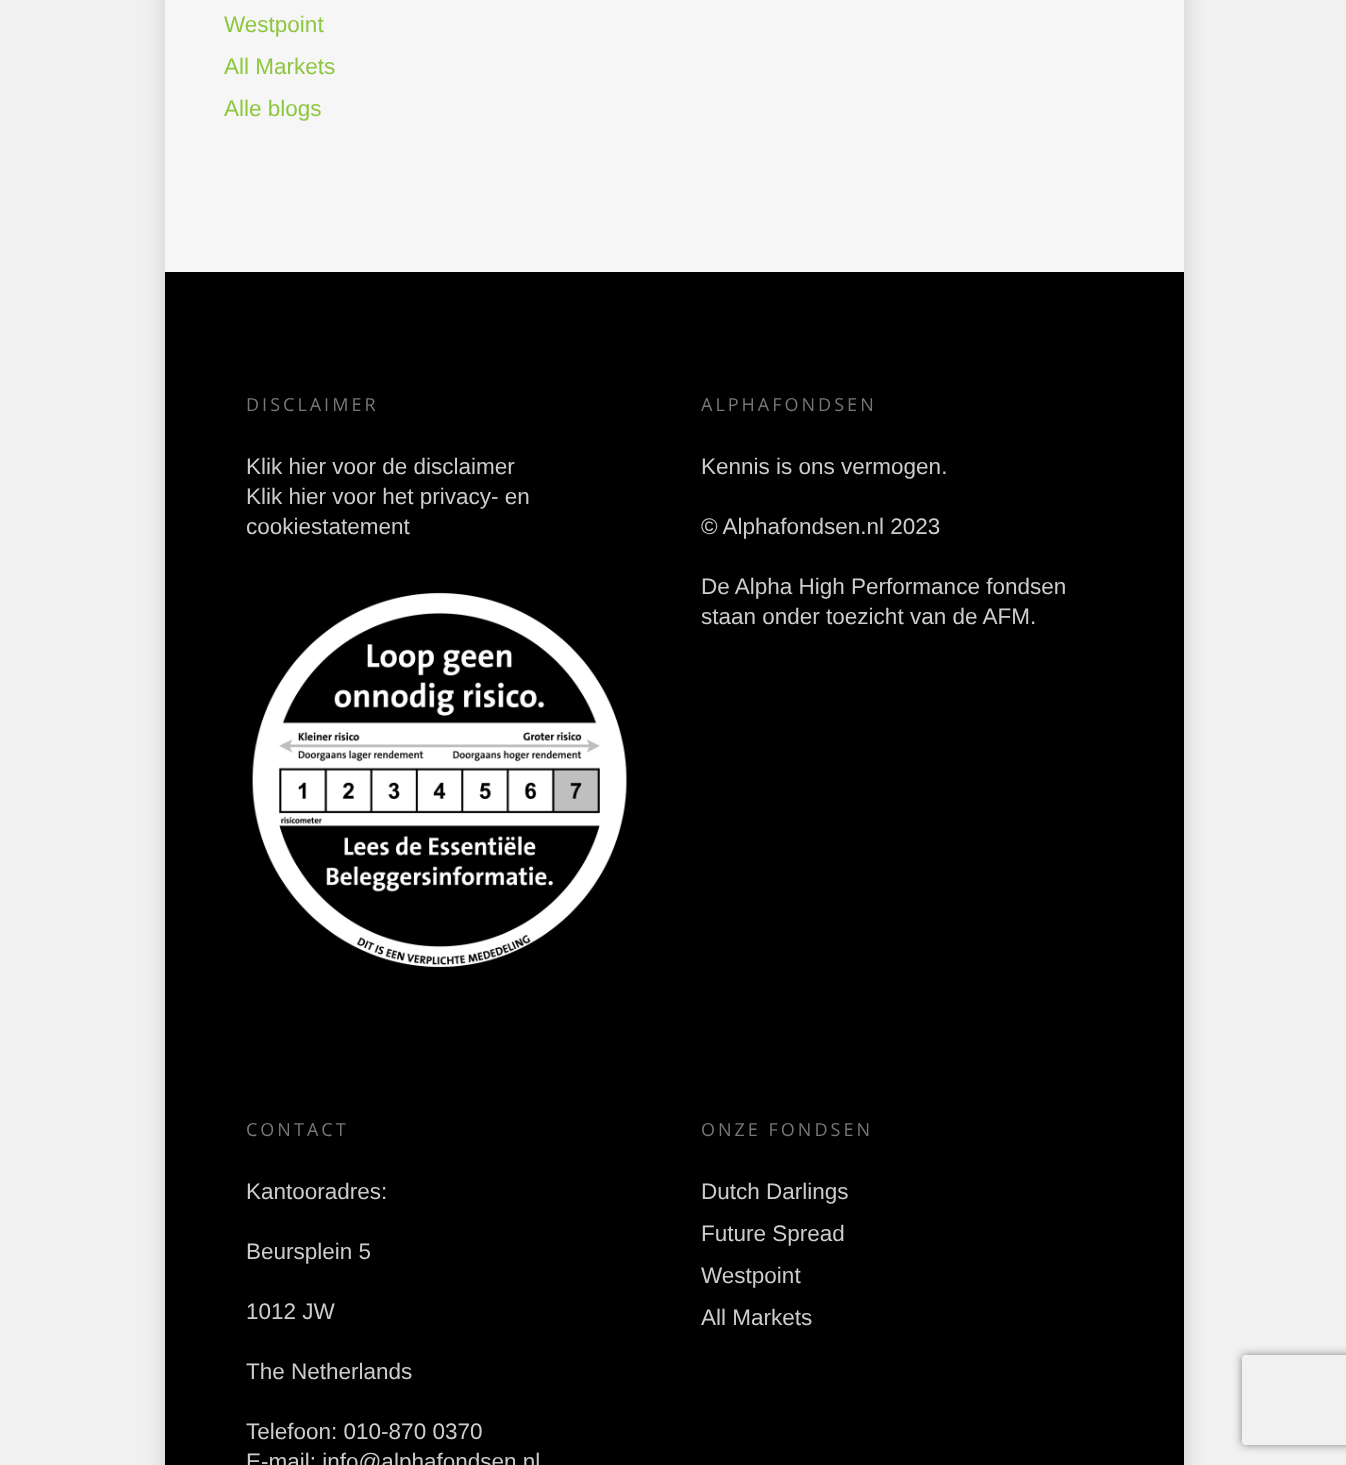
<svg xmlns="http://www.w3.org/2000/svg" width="1346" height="1465">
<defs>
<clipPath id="clip1"><path d="M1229 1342h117v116h-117zm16 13h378c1.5 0 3 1.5 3 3v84c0 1.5-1.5 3-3 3h-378c-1.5 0-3-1.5-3-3v-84c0-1.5 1.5-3 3-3z" clip-rule="evenodd"/></clipPath>
</defs>
<rect width="100%" height="100%" fill="#f1f1f1"/>
<rect x="165" y="-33" width="1019" height="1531" fill="#00000026" filter="blur(11px)"/>
<rect x="165" width="1019" height="272" fill="#f6f6f6"/>
<text x="224" y="32" style="font-family:Liberation Sans;font-size:22.5px;fill:#8dc63f">Westpoint</text>
<text x="224" y="74" style="font-family:Liberation Sans;font-size:22.5px;fill:#8dc63f">All Markets</text>
<text x="224" y="116" style="font-family:Liberation Sans;font-size:22.5px;fill:#8dc63f">Alle blogs</text>
<rect x="165" y="272" width="1019" height="1193" fill="#000"/>
<text x="246" y="411" style="font-family:Open Sans;font-size:18px;letter-spacing:3px;fill:#777">DISCLAIMER</text>
<text x="246" y="474" style="font-family:Liberation Sans;font-size:22.5px;fill:#ccc">Klik hier voor de disclaimer</text>
<text x="246" y="504" style="font-family:Liberation Sans;font-size:22.5px;fill:#ccc">Klik hier voor het privacy- en</text>
<text x="246" y="534" style="font-family:Liberation Sans;font-size:22.5px;fill:#ccc">cookiestatement</text>
<image x="252" y="592" width="375" height="376" href="media/1.png"/>
<text x="701" y="411" style="font-family:Open Sans;font-size:18px;letter-spacing:3px;fill:#777">ALPHAFONDSEN</text>
<text x="701" y="474" style="font-family:Liberation Sans;font-size:22.5px;fill:#ccc">Kennis is ons vermogen.</text>
<text x="701" y="534" style="font-family:Liberation Sans;font-size:22.5px;fill:#ccc">© Alphafondsen.nl 2023</text>
<text x="701" y="594" style="font-family:Liberation Sans;font-size:22.5px;fill:#ccc">De Alpha High Performance fondsen</text>
<text x="701" y="624" style="font-family:Liberation Sans;font-size:22.5px;fill:#ccc">staan onder toezicht van de AFM.</text>
<text x="246" y="1136" style="font-family:Open Sans;font-size:18px;letter-spacing:3px;fill:#777">CONTACT</text>
<text x="246" y="1199" style="font-family:Liberation Sans;font-size:22.5px;fill:#ccc">Kantooradres:</text>
<text x="246" y="1259" style="font-family:Liberation Sans;font-size:22.5px;fill:#ccc">Beursplein 5</text>
<text x="246" y="1319" style="font-family:Liberation Sans;font-size:22.5px;fill:#ccc">1012 JW</text>
<text x="246" y="1379" style="font-family:Liberation Sans;font-size:22.5px;fill:#ccc">The Netherlands</text>
<text x="246" y="1439" style="font-family:Liberation Sans;font-size:22.5px;fill:#ccc">Telefoon: 010-870 0370</text>
<text x="246" y="1469" style="font-family:Liberation Sans;font-size:22.5px;fill:#ccc">E-mail: info@alphafondsen.nl</text>
<text x="701" y="1136" style="font-family:Open Sans;font-size:18px;letter-spacing:3px;fill:#777">ONZE FONDSEN</text>
<text x="701" y="1199" style="font-family:Liberation Sans;font-size:22.5px;fill:#ccc">Dutch Darlings</text>
<text x="701" y="1241" style="font-family:Liberation Sans;font-size:22.5px;fill:#ccc">Future Spread</text>
<text x="701" y="1283" style="font-family:Liberation Sans;font-size:22.5px;fill:#ccc">Westpoint</text>
<text x="701" y="1325" style="font-family:Liberation Sans;font-size:22.5px;fill:#ccc">All Markets</text>
<g clip-path="url(#clip1)">
<rect x="1242" y="1355" width="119" height="90" rx="3" fill="#808080" filter="blur(4px)"/>
</g>
</svg>
